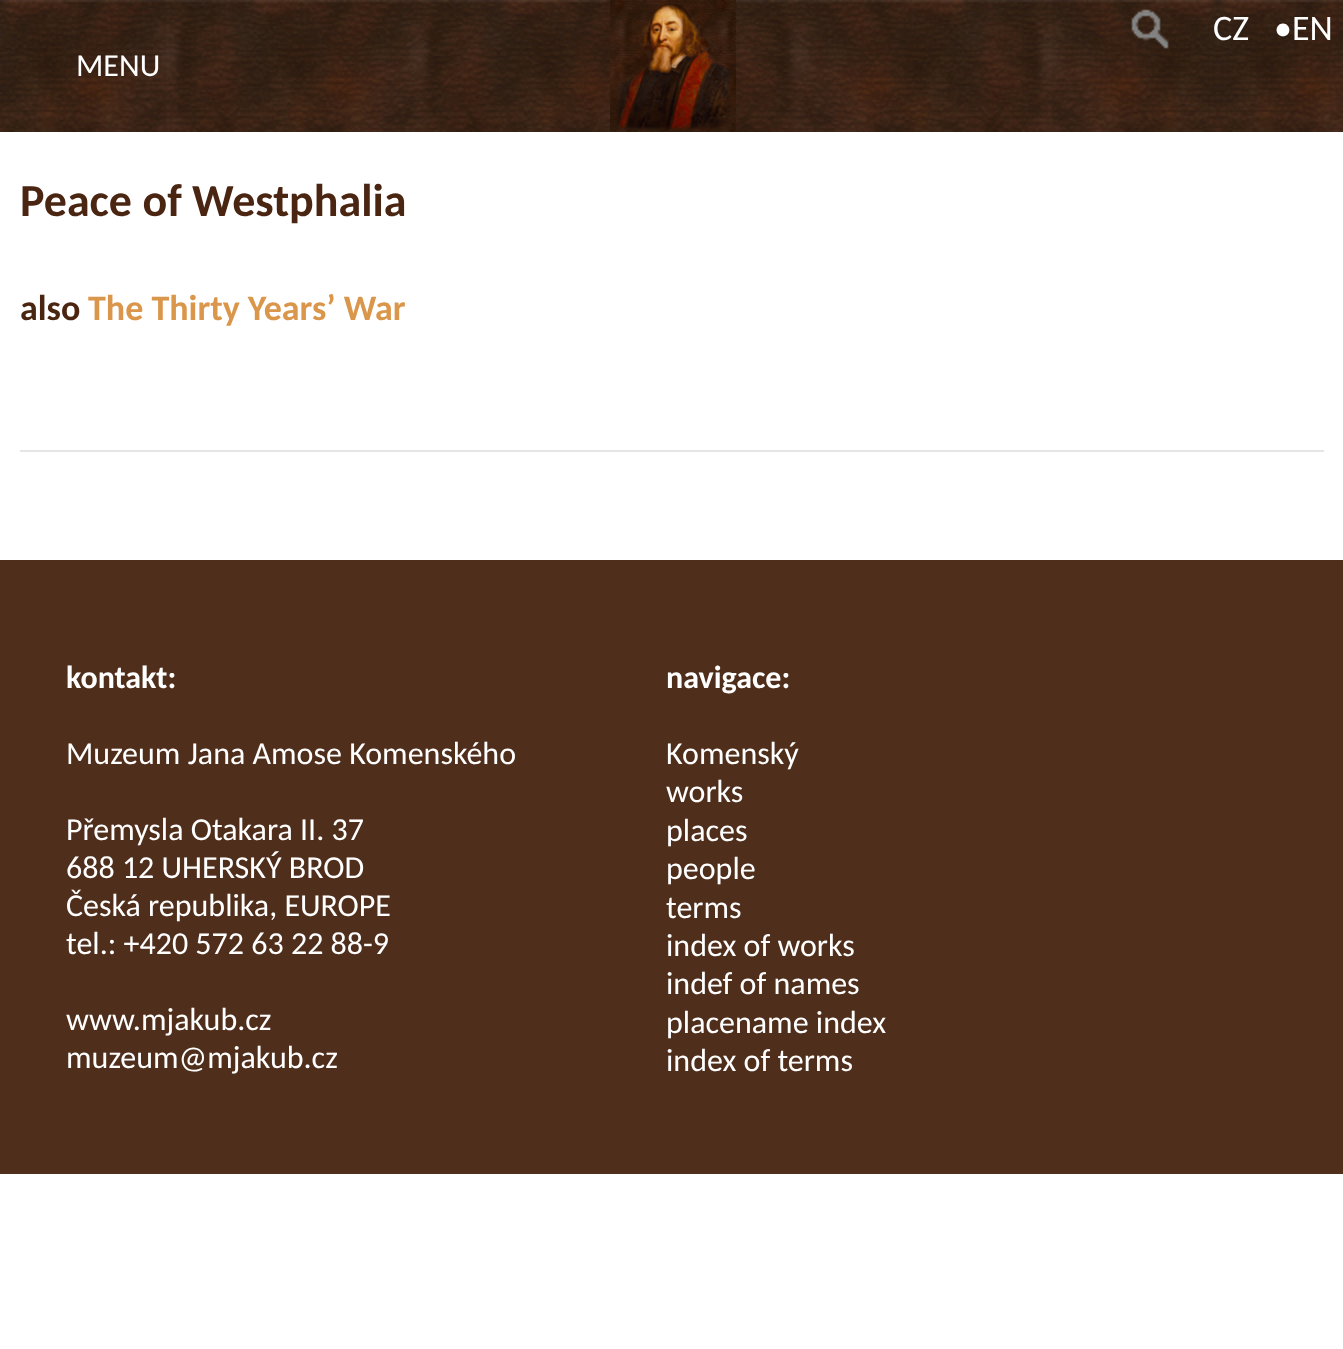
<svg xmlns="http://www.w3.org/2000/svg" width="1343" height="1349">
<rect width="100%" height="100%" fill="#fff"/>
<image x="0" y="0" width="1343" height="132" href="media/1.png"/>
<image x="610" y="0" width="126" height="132" href="media/2.png"/>
<image x="1131" y="9" width="38" height="40" href="media/3.png"/>
<text x="1213" y="40" style="font-family:Carlito;font-size:36px;fill:#fff">CZ</text>
<text x="1274" y="40" style="font-family:Carlito;font-size:36px;fill:#fff">•EN</text>
<text x="76" y="76" style="font-family:Carlito;font-size:32px;fill:#fff">MENU</text>
<text x="20" y="216" style="font-family:Carlito;font-size:46px;font-weight:bold;fill:#4a2512">Peace of Westphalia</text>
<text x="20" y="320" style="font-family:Carlito;font-size:36px;font-weight:bold;fill:#4a2512">also</text>
<text x="88" y="320" style="font-family:Carlito;font-size:36px;font-weight:bold;fill:#da964a">The Thirty Years’ War</text>
<rect x="20" y="450" width="1304" height="2" fill="#e6e6e6"/>
<rect y="560" width="1343" height="614" fill="#4f2e1b"/>
<text x="66" y="688" style="font-family:Carlito;font-size:32px;font-weight:bold;fill:#fff">kontakt:</text>
<text x="66" y="764" style="font-family:Carlito;font-size:32px;fill:#fff">Muzeum Jana Amose Komenského</text>
<text x="66" y="840" style="font-family:Carlito;font-size:32px;fill:#fff">Přemysla Otakara II. 37</text>
<text x="66" y="878" style="font-family:Carlito;font-size:32px;fill:#fff">688 12 UHERSKÝ BROD</text>
<text x="66" y="916" style="font-family:Carlito;font-size:32px;fill:#fff">Česká republika, EUROPE</text>
<text x="66" y="954" style="font-family:Carlito;font-size:32px;fill:#fff">tel.: +420 572 63 22 88-9</text>
<text x="66" y="1030" style="font-family:Carlito;font-size:32px;fill:#fff">www.mjakub.cz</text>
<text x="66" y="1068" style="font-family:Carlito;font-size:32px;fill:#fff">muzeum@mjakub.cz</text>
<text x="666" y="688" style="font-family:Carlito;font-size:32px;font-weight:bold;fill:#fff">navigace:</text>
<text x="666" y="764" style="font-family:Carlito;font-size:32px;fill:#fff">Komenský</text>
<text x="666" y="802" style="font-family:Carlito;font-size:32px;fill:#fff">works</text>
<text x="666" y="841" style="font-family:Carlito;font-size:32px;fill:#fff">places</text>
<text x="666" y="879" style="font-family:Carlito;font-size:32px;fill:#fff">people</text>
<text x="666" y="918" style="font-family:Carlito;font-size:32px;fill:#fff">terms</text>
<text x="666" y="956" style="font-family:Carlito;font-size:32px;fill:#fff">index of works</text>
<text x="666" y="994" style="font-family:Carlito;font-size:32px;fill:#fff">indef of names</text>
<text x="666" y="1033" style="font-family:Carlito;font-size:32px;fill:#fff">placename index</text>
<text x="666" y="1071" style="font-family:Carlito;font-size:32px;fill:#fff">index of terms</text>
</svg>
